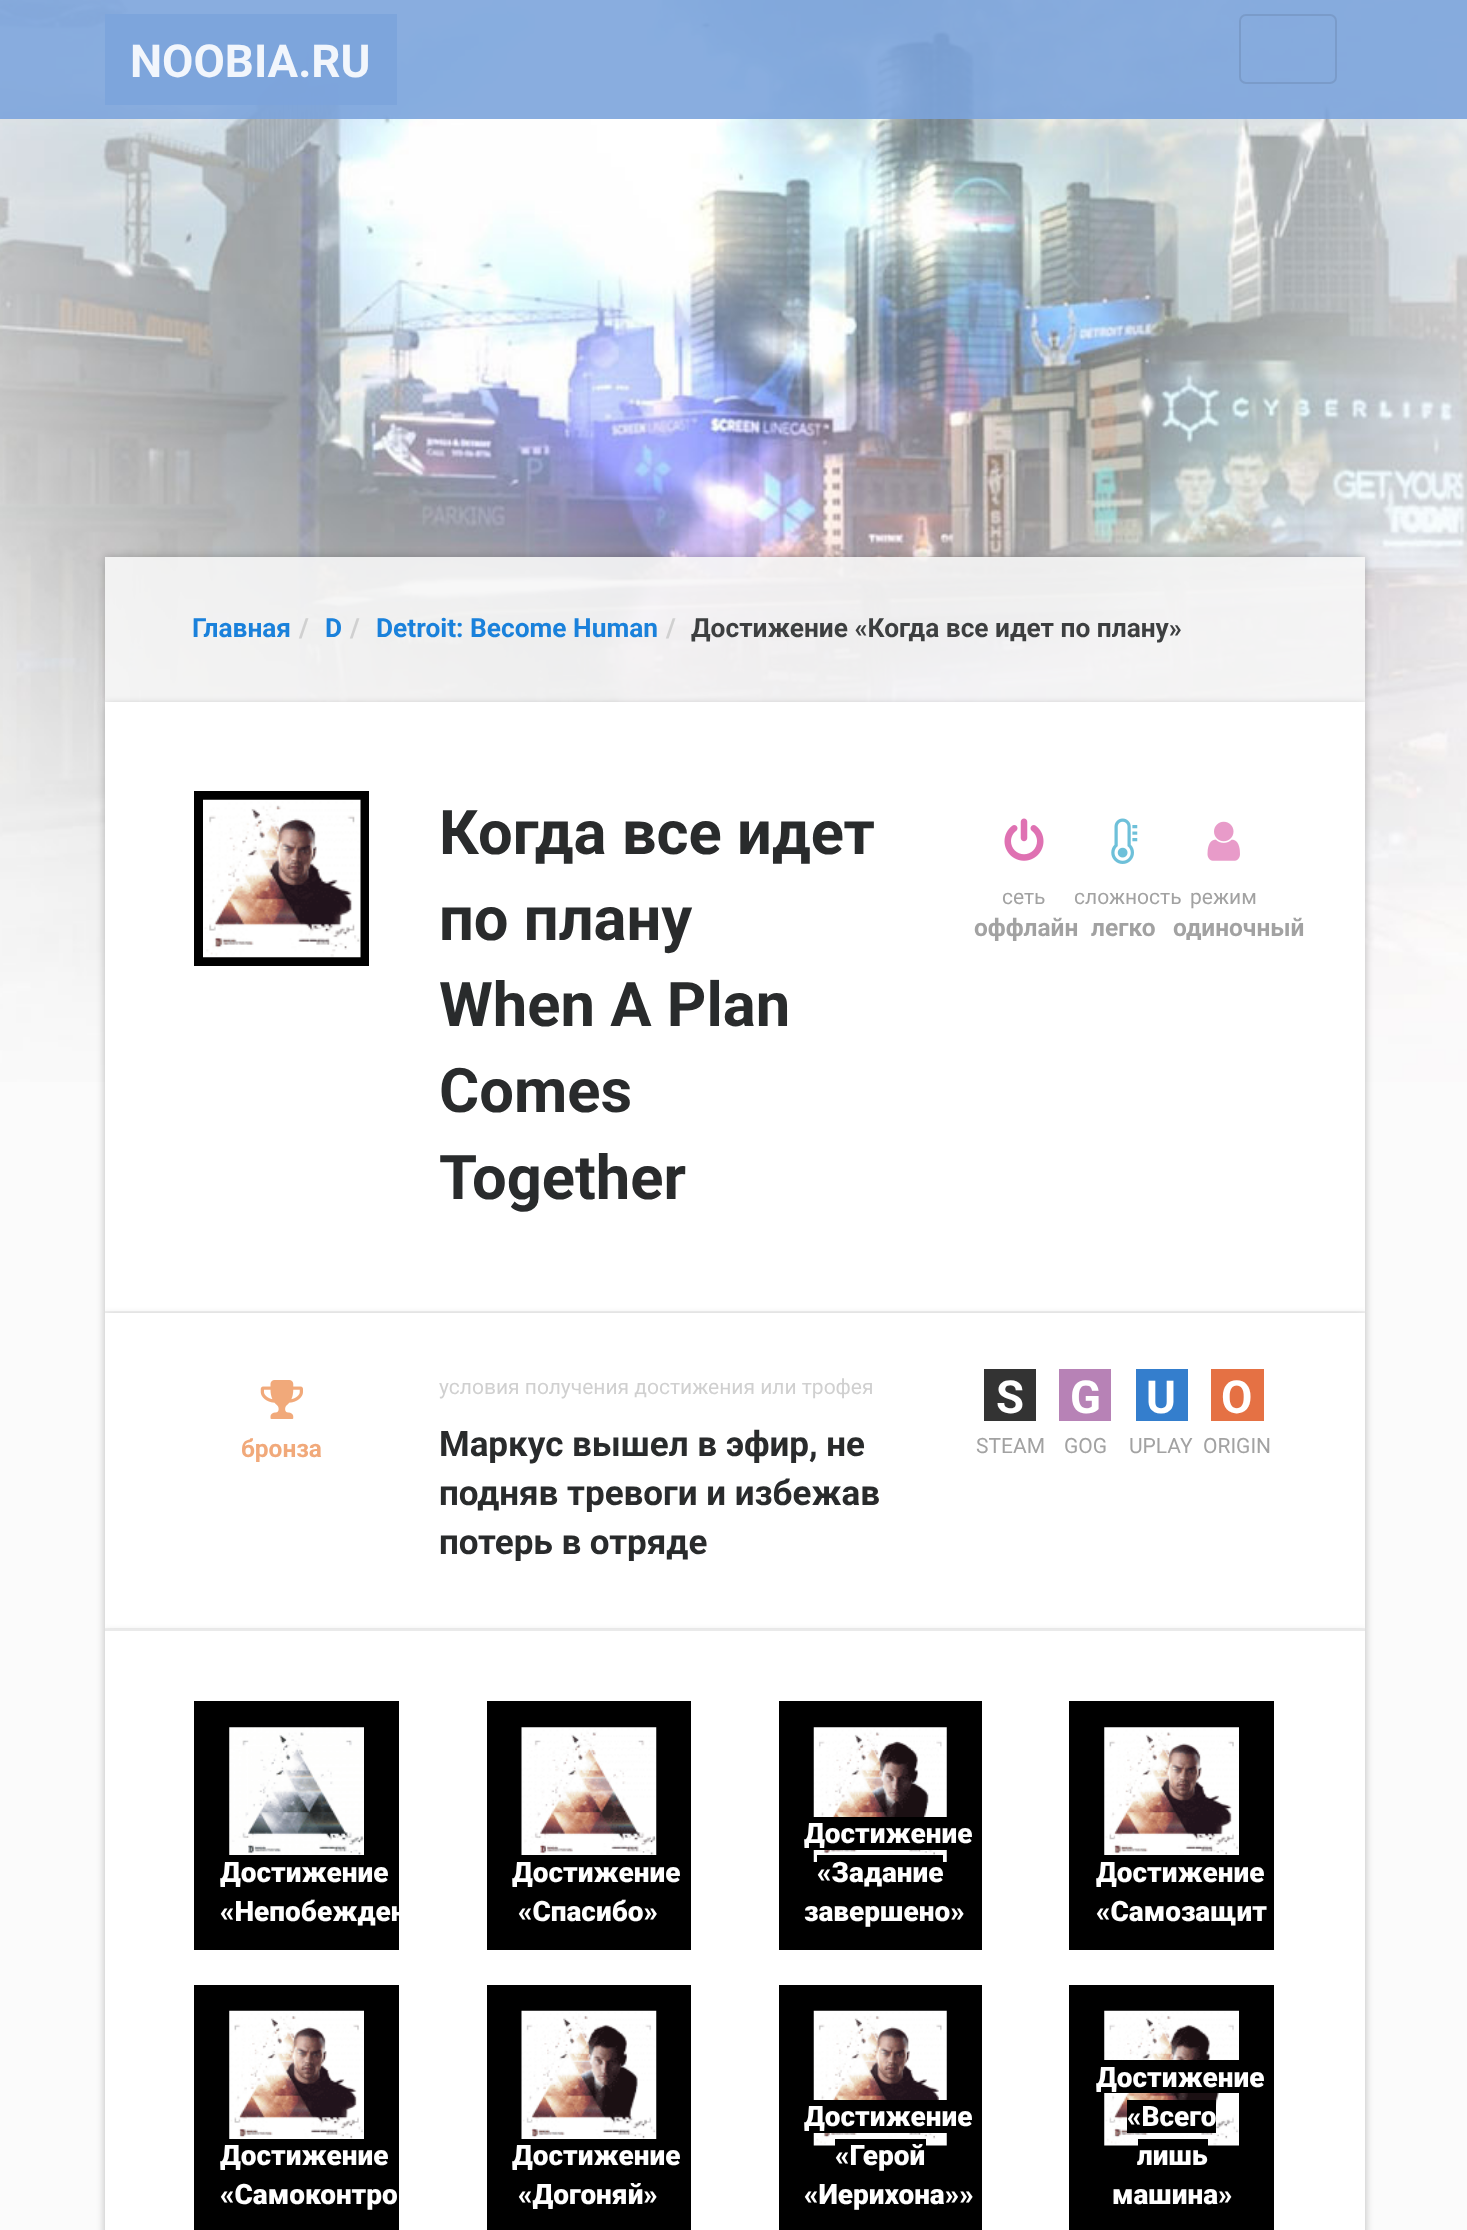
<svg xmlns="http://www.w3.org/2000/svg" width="1467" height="2230">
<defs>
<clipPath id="clip1"><path d="M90 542h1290v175h-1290zm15 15h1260v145h-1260z" clip-rule="evenodd"/></clipPath>
<clipPath id="clip2"><rect x="194" y="1827" width="205" height="123"/></clipPath>
</defs>
<rect width="100%" height="100%" fill="#fbfbfb"/>
<image x="0" y="0" width="1467" height="1082" href="media/1.png"/>
<rect width="1467" height="119" fill="#7ca4dce6"/>
<rect x="105" y="14" width="292" height="91" fill="#7ca4dce6"/>
<text x="130" y="77" style="font-family:Roboto;font-size:45.5px;font-weight:bold;fill:#f2f6fc">NOOBIA.RU</text>
<rect x="1240" y="15" width="96" height="68" rx="6" fill="none" stroke="#7a9bc9" stroke-width="2"/>
<g clip-path="url(#clip1)">
<rect x="105" y="557" width="1260" height="145" fill="#0000003b" filter="blur(4.5px)"/>
</g>
<rect x="105" y="557" width="1260" height="145" fill="#f6f6f6e6"/>
<text x="192" y="637" style="font-family:Roboto;font-size:26.3px;font-weight:bold;fill:#1a81db">Главная</text>
<text x="299" y="637" style="font-family:Roboto;font-size:26.3px;font-weight:bold;fill:#d0d0d0">/</text>
<text x="325" y="637" style="font-family:Roboto;font-size:26.3px;font-weight:bold;fill:#1a81db">D</text>
<text x="350" y="637" style="font-family:Roboto;font-size:26.3px;font-weight:bold;fill:#d0d0d0">/</text>
<text x="376" y="637" style="font-family:Roboto;font-size:26.3px;font-weight:bold;fill:#1a81db">Detroit: Become Human</text>
<text x="666" y="637" style="font-family:Roboto;font-size:26.3px;font-weight:bold;fill:#d0d0d0">/</text>
<text x="691" y="637" style="font-family:Roboto;font-size:26.3px;font-weight:bold;fill:#3d3f40">Достижение «Когда все идет по плану»</text>
<rect x="105" y="705" width="1260" height="611" fill="#00000042" filter="blur(4.5px)"/>
<rect x="105" y="702" width="1260" height="609" fill="#fff"/>
<rect x="105" y="1311" width="1260" height="2" fill="#f2f2f2"/>
<rect x="194" y="791" width="175" height="175" fill="#000"/>
<image x="203" y="799" width="158" height="159" href="media/2.png"/>
<text x="439" y="854" style="font-family:Roboto;font-size:61.5px;font-weight:bold;fill:#292b2c">Когда все идет</text>
<text x="439" y="940" style="font-family:Roboto;font-size:61.5px;font-weight:bold;fill:#292b2c">по плану</text>
<text x="439" y="1026" style="font-family:Roboto;font-size:61.5px;font-weight:bold;fill:#292b2c">When A Plan</text>
<text x="439" y="1112" style="font-family:Roboto;font-size:61.5px;font-weight:bold;fill:#292b2c">Comes</text>
<text x="439" y="1199" style="font-family:Roboto;font-size:61.5px;font-weight:bold;fill:#292b2c">Together</text>
<image x="1004" y="818" width="40" height="43" href="media/3.png"/>
<text x="1002" y="904" style="font-family:Roboto;font-size:21px;fill:#a2a2a2">сеть</text>
<text x="974" y="936" style="font-family:Roboto;font-size:24.5px;font-weight:bold;fill:#a2a2a2">оффлайн</text>
<image x="1111" y="818" width="27" height="46" href="media/4.png"/>
<text x="1074" y="904" style="font-family:Roboto;font-size:21px;fill:#a2a2a2">сложность</text>
<text x="1091" y="936" style="font-family:Roboto;font-size:24.5px;font-weight:bold;fill:#a2a2a2">легко</text>
<image x="1207" y="821" width="33" height="40" href="media/5.png"/>
<text x="1190" y="904" style="font-family:Roboto;font-size:21px;fill:#a2a2a2">режим</text>
<text x="1173" y="936" style="font-family:Roboto;font-size:24.5px;font-weight:bold;fill:#a2a2a2">одиночный</text>
<rect x="105" y="1316" width="1260" height="317" fill="#00000042" filter="blur(4.5px)"/>
<rect x="105" y="1313" width="1260" height="315" fill="#fff"/>
<rect x="105" y="1628" width="1260" height="1" fill="#f2f2f2"/>
<image x="260" y="1380" width="43" height="39" href="media/6.png"/>
<text x="241" y="1457" style="font-family:Roboto;font-size:24.5px;font-weight:bold;fill:#f1a97a">бронза</text>
<text x="439" y="1394" style="font-family:Roboto;font-size:21px;fill:#d0d0d0">условия получения достижения или трофея</text>
<text x="439" y="1456" style="font-family:Roboto;font-size:35px;font-weight:bold;fill:#292b2c">Маркус вышел в эфир, не</text>
<text x="439" y="1505" style="font-family:Roboto;font-size:35px;font-weight:bold;fill:#292b2c">подняв тревоги и избежав</text>
<text x="439" y="1554" style="font-family:Roboto;font-size:35px;font-weight:bold;fill:#292b2c">потерь в отряде</text>
<rect x="984" y="1369" width="52" height="52" fill="#333"/>
<text x="996" y="1413" style="font-family:Roboto;font-size:45.5px;font-weight:bold;fill:#fff">S</text>
<text x="976" y="1453" style="font-family:Roboto;font-size:21px;fill:#a2a2a2">STEAM</text>
<rect x="1059" y="1369" width="52" height="52" fill="#b782b6"/>
<text x="1070" y="1413" style="font-family:Roboto;font-size:45.5px;font-weight:bold;fill:#fff">G</text>
<text x="1064" y="1453" style="font-family:Roboto;font-size:21px;fill:#a2a2a2">GOG</text>
<rect x="1136" y="1369" width="52" height="52" fill="#347ecd"/>
<text x="1146" y="1413" style="font-family:Roboto;font-size:45.5px;font-weight:bold;fill:#fff">U</text>
<text x="1129" y="1453" style="font-family:Roboto;font-size:21px;fill:#a2a2a2">UPLAY</text>
<rect x="1211" y="1369" width="53" height="52" fill="#e57144"/>
<text x="1221" y="1413" style="font-family:Roboto;font-size:45.5px;font-weight:bold;fill:#fff">O</text>
<text x="1203" y="1453" style="font-family:Roboto;font-size:21px;fill:#a2a2a2">ORIGIN</text>
<rect x="105" y="1633" width="1260" height="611" fill="#00000042" filter="blur(4.5px)"/>
<rect x="105" y="1631" width="1260" height="599" fill="#fff"/>
<rect x="105" y="1629" width="1260" height="2" fill="#eaeaea"/>
<rect x="194" y="1701" width="205" height="249" fill="#000"/>
<image x="229" y="1727" width="135" height="128" href="media/7.png"/>
<text x="220" y="1882" style="font-family:Roboto;font-size:28px;font-weight:900;fill:#fff">Достижение</text>
<g clip-path="url(#clip2)">
<text x="220" y="1921" style="font-family:Roboto;font-size:28px;font-weight:900;fill:#fff">«Непобежден</text>
</g>
<rect x="487" y="1701" width="204" height="249" fill="#000"/>
<image x="521" y="1727" width="136" height="128" href="media/8.png"/>
<text x="512" y="1882" style="font-family:Roboto;font-size:28px;font-weight:900;fill:#fff">Достижение</text>
<text x="518" y="1921" style="font-family:Roboto;font-size:28px;font-weight:900;fill:#fff">«Спасибо»</text>
<rect x="779" y="1701" width="203" height="249" fill="#000"/>
<image x="813" y="1727" width="134" height="135" href="media/9.png"/>
<rect x="813" y="1817" width="134" height="33" fill="#000"/>
<text x="804" y="1843" style="font-family:Roboto;font-size:28px;font-weight:900;fill:#fff">Достижение</text>
<rect x="817" y="1855" width="126" height="7" fill="#000"/>
<text x="817" y="1882" style="font-family:Roboto;font-size:28px;font-weight:900;fill:#fff">«Задание</text>
<text x="804" y="1921" style="font-family:Roboto;font-size:28px;font-weight:900;fill:#fff">завершено»</text>
<rect x="1069" y="1701" width="205" height="249" fill="#000"/>
<image x="1104" y="1727" width="135" height="128" href="media/10.png"/>
<text x="1096" y="1882" style="font-family:Roboto;font-size:28px;font-weight:900;fill:#fff">Достижение</text>
<text x="1096" y="1921" style="font-family:Roboto;font-size:28px;font-weight:900;fill:#fff">«Самозащит</text>
<rect x="194" y="1985" width="205" height="245" fill="#000"/>
<image x="229" y="2010" width="135" height="129" href="media/11.png"/>
<text x="220" y="2165" style="font-family:Roboto;font-size:28px;font-weight:900;fill:#fff">Достижение</text>
<text x="220" y="2204" style="font-family:Roboto;font-size:28px;font-weight:900;fill:#fff">«Самоконтро</text>
<rect x="487" y="1985" width="204" height="245" fill="#000"/>
<image x="521" y="2010" width="136" height="129" href="media/12.png"/>
<text x="512" y="2165" style="font-family:Roboto;font-size:28px;font-weight:900;fill:#fff">Достижение</text>
<text x="518" y="2204" style="font-family:Roboto;font-size:28px;font-weight:900;fill:#fff">«Догоняй»</text>
<rect x="779" y="1985" width="203" height="245" fill="#000"/>
<image x="813" y="2010" width="134" height="136" href="media/13.png"/>
<rect x="813" y="2100" width="134" height="33" fill="#000"/>
<text x="804" y="2126" style="font-family:Roboto;font-size:28px;font-weight:900;fill:#fff">Достижение</text>
<rect x="835" y="2139" width="91" height="7" fill="#000"/>
<text x="835" y="2165" style="font-family:Roboto;font-size:28px;font-weight:900;fill:#fff">«Герой</text>
<text x="804" y="2204" style="font-family:Roboto;font-size:28px;font-weight:900;fill:#fff">«Иерихона»»</text>
<rect x="1069" y="1985" width="205" height="245" fill="#000"/>
<image x="1104" y="2010" width="135" height="136" href="media/14.png"/>
<rect x="1104" y="2060" width="135" height="33" fill="#000"/>
<text x="1096" y="2087" style="font-family:Roboto;font-size:28px;font-weight:900;fill:#fff">Достижение</text>
<rect x="1127" y="2100" width="89" height="33" fill="#000"/>
<text x="1127" y="2126" style="font-family:Roboto;font-size:28px;font-weight:900;fill:#fff">«Всего</text>
<text x="1137" y="2165" style="font-family:Roboto;font-size:28px;font-weight:900;fill:#fff">лишь</text>
<rect x="1138" y="2139" width="70" height="7" fill="#000"/>
<text x="1112" y="2204" style="font-family:Roboto;font-size:28px;font-weight:900;fill:#fff">машина»</text>
</svg>
